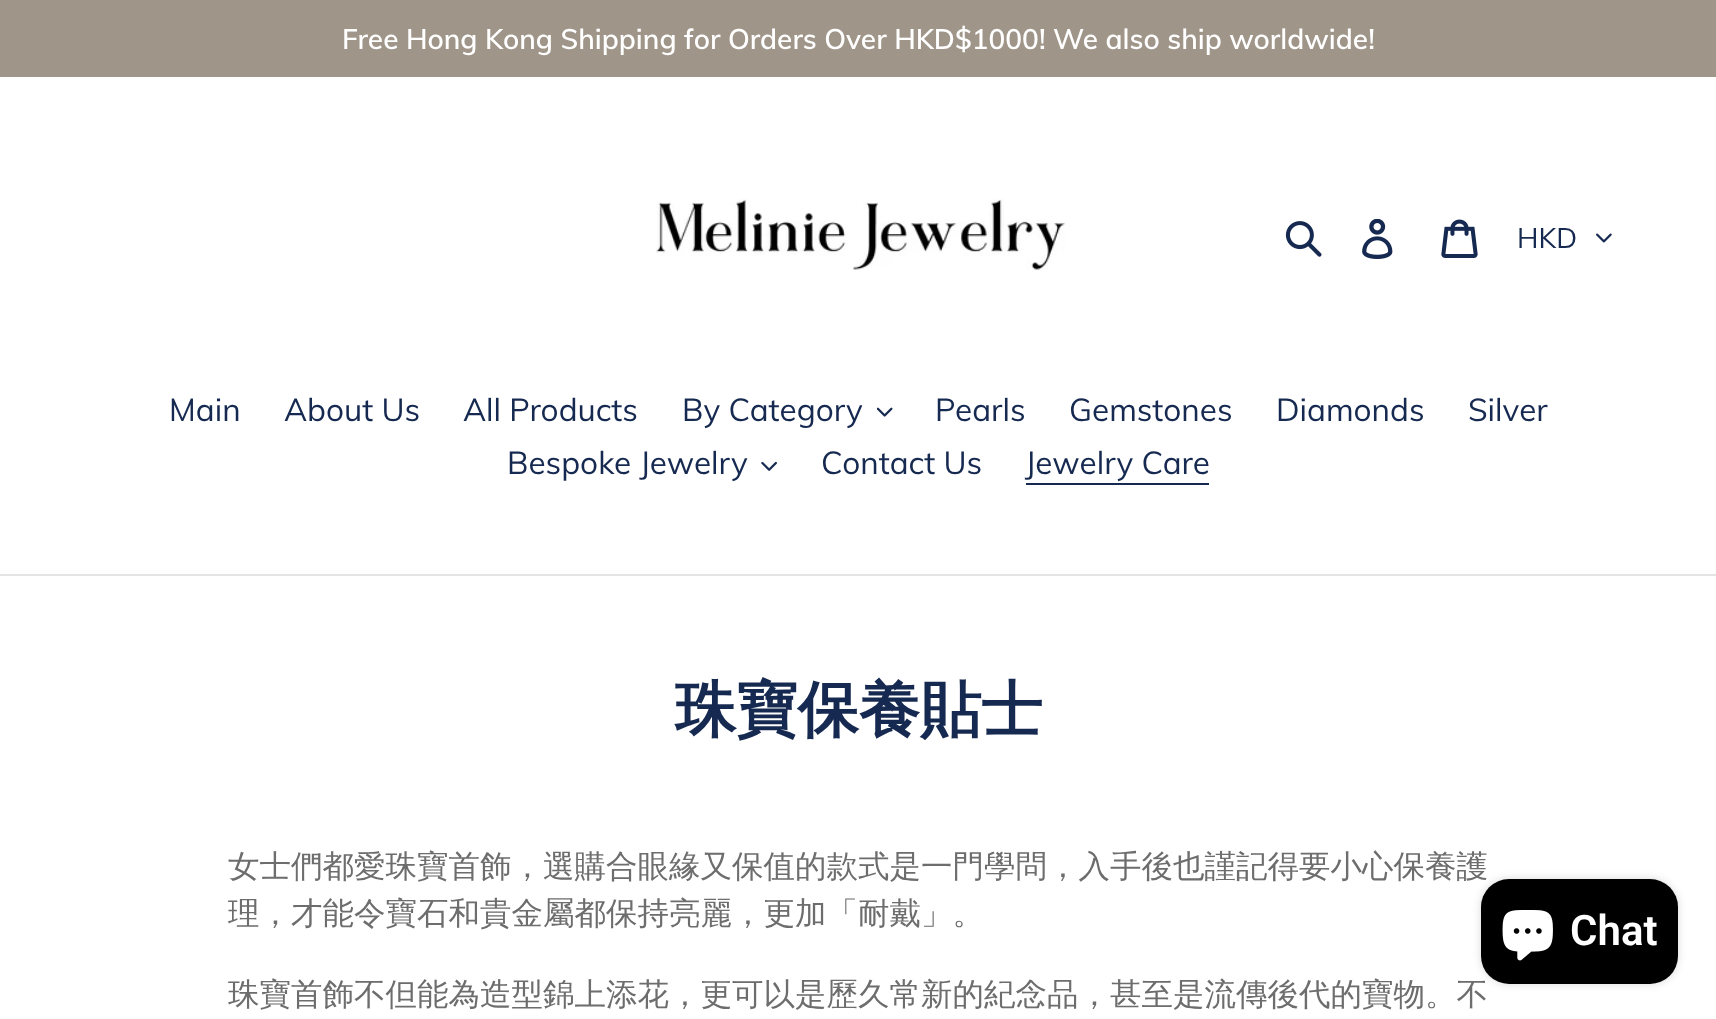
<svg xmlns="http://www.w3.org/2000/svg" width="1716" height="1019">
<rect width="100%" height="100%" fill="#fff"/>
<rect width="1716" height="77" fill="#9f9589"/>
<text x="342" y="49" style="font-family:Muli;font-size:28px;font-weight:600;fill:#fff">Free Hong Kong Shipping for Orders Over HKD$1000! We also ship worldwide!</text>
<image x="656" y="199" width="410" height="71" href="media/1.png"/>
<image x="1285" y="221" width="37" height="36" href="media/2.png"/>
<image x="1362" y="219" width="31" height="40" href="media/3.png"/>
<image x="1441" y="219" width="37" height="39" href="media/4.png"/>
<text x="1517" y="248" style="font-family:Muli;font-size:28px;fill:#162950">HKD</text>
<image x="1596" y="233" width="16" height="10" href="media/5.png"/>
<rect y="574" width="1716" height="2" fill="#e4e4e4"/>
<text x="169" y="421" style="font-family:Muli;font-size:31.5px;fill:#162950">Main</text>
<text x="284" y="421" style="font-family:Muli;font-size:31.5px;fill:#162950">About Us</text>
<text x="463" y="421" style="font-family:Muli;font-size:31.5px;fill:#162950">All Products</text>
<text x="682" y="421" style="font-family:Muli;font-size:31.5px;fill:#162950">By Category</text>
<image x="877" y="407" width="16" height="10" href="media/6.png"/>
<text x="935" y="421" style="font-family:Muli;font-size:31.5px;fill:#162950">Pearls</text>
<text x="1069" y="421" style="font-family:Muli;font-size:31.5px;fill:#162950">Gemstones</text>
<text x="1276" y="421" style="font-family:Muli;font-size:31.5px;fill:#162950">Diamonds</text>
<text x="1468" y="421" style="font-family:Muli;font-size:31.5px;fill:#162950">Silver</text>
<text x="507" y="474" style="font-family:Muli;font-size:31.5px;fill:#162950">Bespoke Jewelry</text>
<image x="761" y="461" width="16" height="10" href="media/7.png"/>
<text x="821" y="474" style="font-family:Muli;font-size:31.5px;fill:#162950">Contact Us</text>
<text x="1025" y="474" style="font-family:Muli;font-size:31.5px;fill:#162950">Jewelry Care</text>
<rect x="1026" y="483" width="183" height="2" fill="#162950"/>
<text x="675" y="731" style="font-family:WenQuanYi Zen Hei;font-size:61.25px;font-weight:bold;fill:#162950">珠寶保養貼士</text>
<text x="228" y="877" style="font-family:WenQuanYi Zen Hei;font-size:31.5px;font-weight:500;fill:#6d6d6d">女士們都愛珠寶首飾，選購合眼緣又保值的款式是一門學問，入手後也謹記得要小心保養護</text>
<text x="228" y="924" style="font-family:WenQuanYi Zen Hei;font-size:31.5px;font-weight:500;fill:#6d6d6d">理，才能令寶石和貴金屬都保持亮麗，更加「耐戴」。</text>
<text x="228" y="1005" style="font-family:WenQuanYi Zen Hei;font-size:31.5px;font-weight:500;fill:#6d6d6d">珠寶首飾不但能為造型錦上添花，更可以是歷久常新的紀念品，甚至是流傳後代的寶物。不</text>
<rect x="1481" y="879" width="197" height="105" rx="28" fill="#00000026" filter="blur(4.5px)"/>
<rect x="1481" y="879" width="197" height="105" rx="28" fill="#000"/>
<image x="1502" y="910" width="51" height="51" href="media/8.png"/>
<text x="1570" y="945" style="font-family:Roboto;font-size:42px;font-weight:600;fill:#fff">Chat</text>
</svg>
